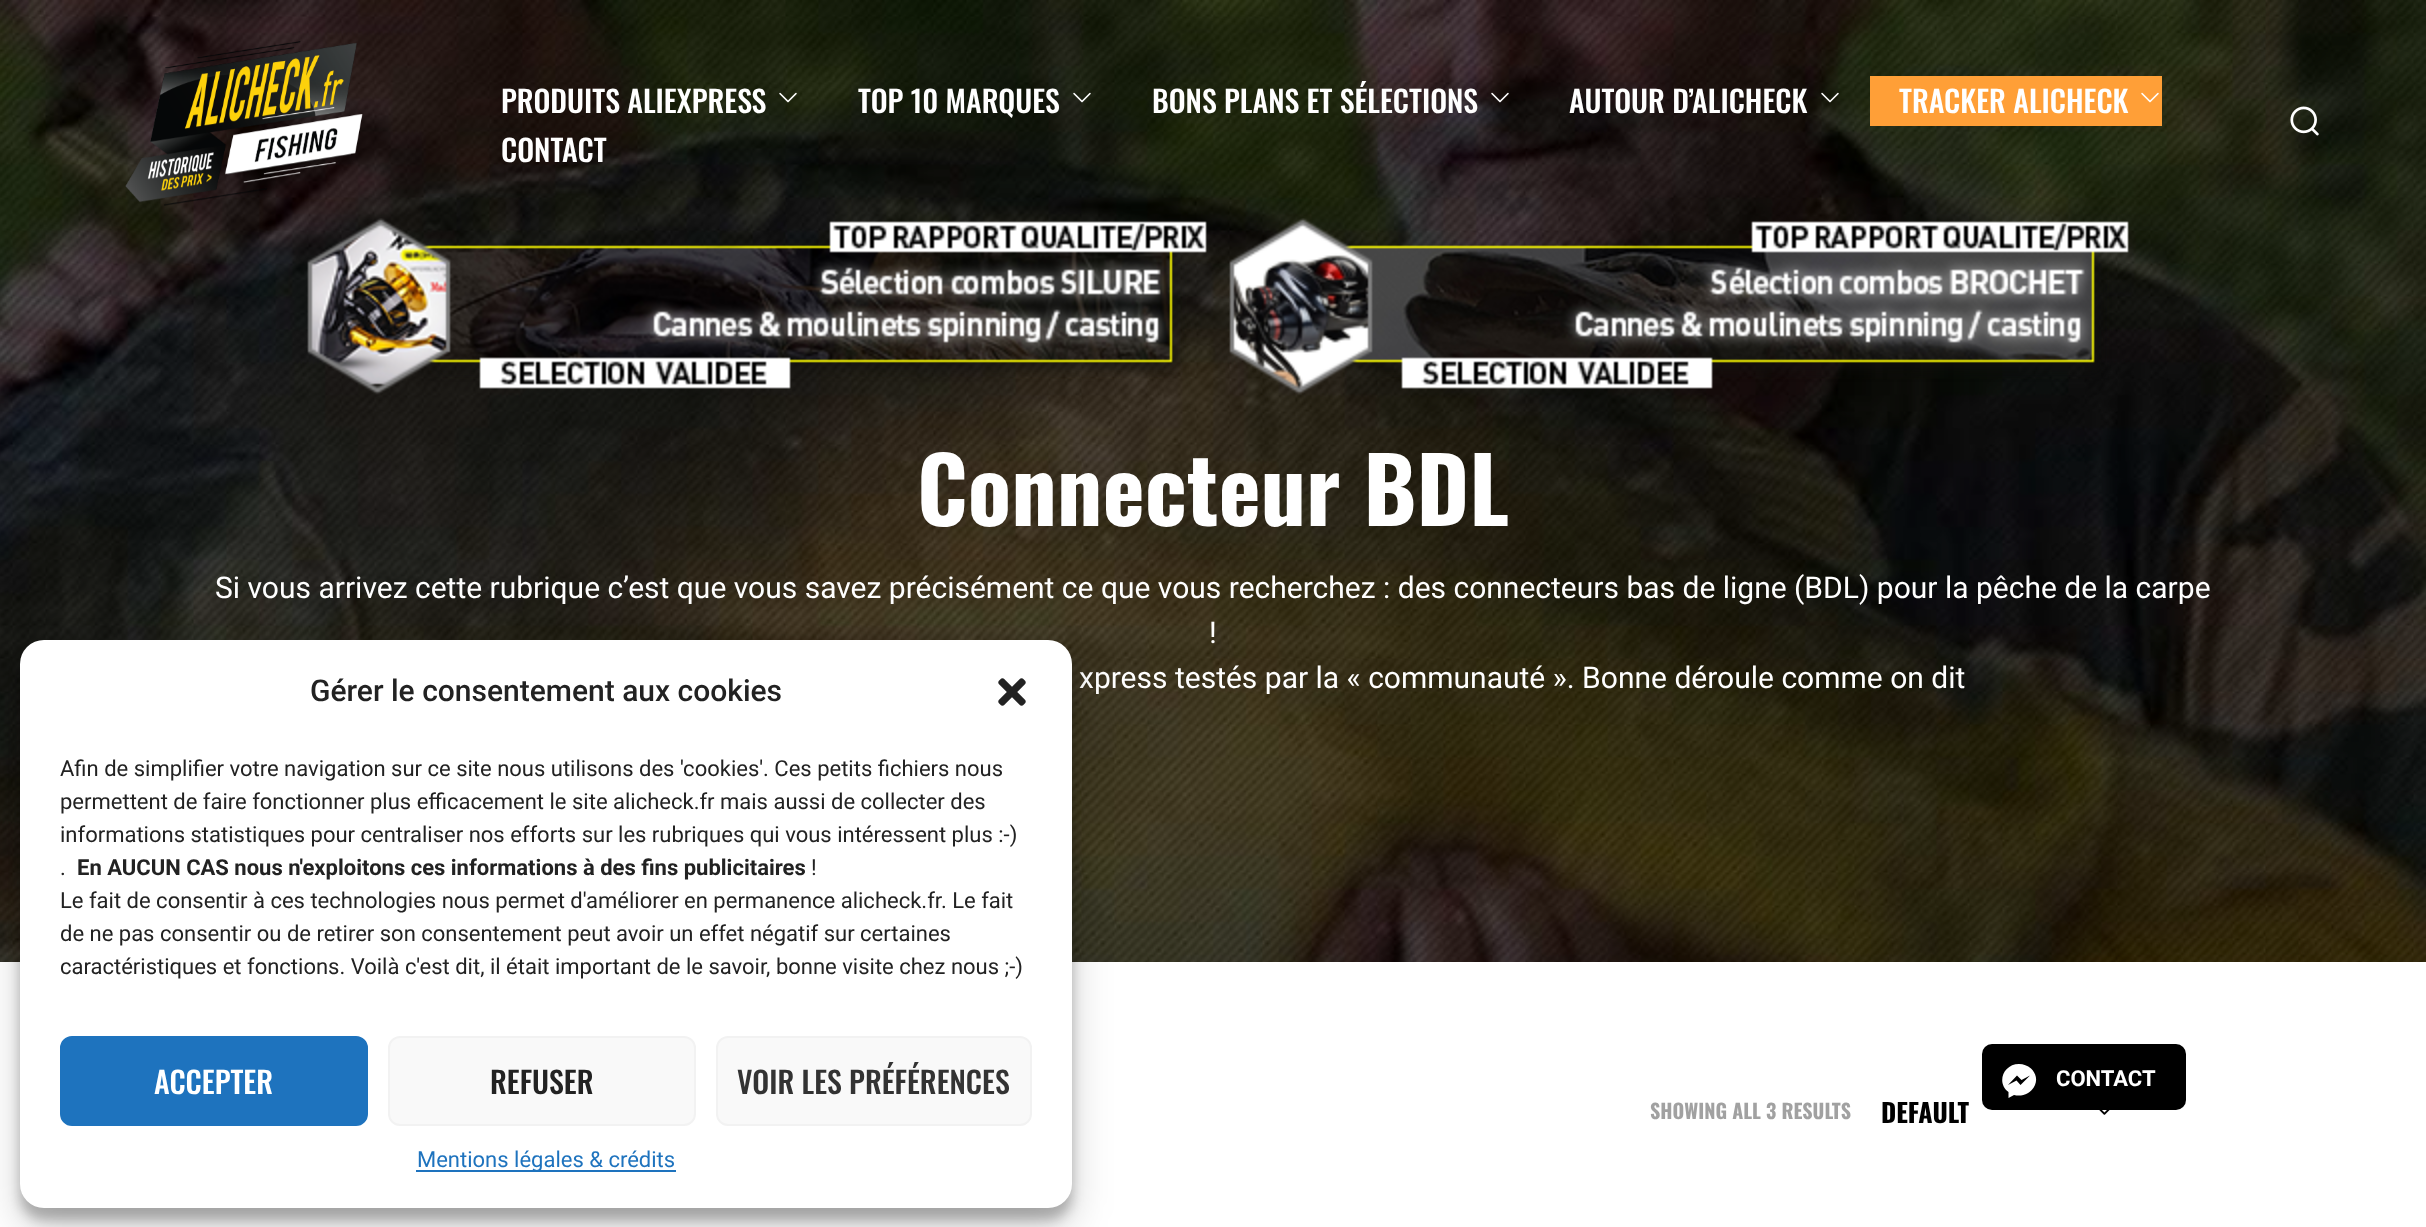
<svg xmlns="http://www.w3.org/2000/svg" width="2426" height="1227">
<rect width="100%" height="100%" fill="#fff"/>
<image x="0" y="0" width="2426" height="962" href="media/10.png"/>
<image x="125" y="41" width="238" height="165" href="media/1.png"/>
<text x="501" y="113" style="font-family:Oswald;font-size:30px;font-weight:500;fill:#fff">PRODUITS ALIEXPRESS</text>
<image x="779" y="92" width="18" height="11" href="media/2.png"/>
<text x="858" y="113" style="font-family:Oswald;font-size:30px;font-weight:500;fill:#fff">TOP 10 MARQUES</text>
<image x="1073" y="92" width="18" height="11" href="media/3.png"/>
<text x="1152" y="113" style="font-family:Oswald;font-size:30px;font-weight:500;fill:#fff">BONS PLANS ET SÉLECTIONS</text>
<image x="1491" y="92" width="18" height="11" href="media/4.png"/>
<text x="1569" y="113" style="font-family:Oswald;font-size:30px;font-weight:500;fill:#fff">AUTOUR D’ALICHECK</text>
<image x="1821" y="92" width="18" height="11" href="media/5.png"/>
<rect x="1870" y="76" width="292" height="50" fill="#ff9f37"/>
<text x="1899" y="113" style="font-family:Oswald;font-size:30px;font-weight:500;fill:#fff">TRACKER ALICHECK</text>
<image x="2141" y="92" width="18" height="11" href="media/6.png"/>
<text x="501" y="162" style="font-family:Oswald;font-size:30px;font-weight:500;fill:#fff">CONTACT</text>
<image x="2290" y="106" width="29" height="30" href="media/7.png"/>
<image x="307" y="218" width="900" height="177" href="media/8.png"/>
<image x="1229" y="218" width="900" height="177" href="media/9.png"/>
<text x="917" y="526" style="font-family:Oswald;font-size:90px;font-weight:bold;fill:#fff">Connecteur BDL</text>
<text x="215" y="598" style="font-family:Roboto;font-size:30px;fill:#fff">Si vous arrivez cette rubrique c’est que vous savez précisément ce que vous recherchez : des connecteurs bas de ligne (BDL) pour la pêche de la carpe</text>
<text x="1209" y="643" style="font-family:Roboto;font-size:30px;fill:#fff">!</text>
<text x="1079" y="688" style="font-family:Roboto;font-size:30px;fill:#fff">xpress testés par la « communauté ». Bonne déroule comme on dit</text>
<text x="1650" y="1119" style="font-family:Oswald;font-size:20px;font-weight:bold;fill:#a1a1a1">SHOWING ALL 3 RESULTS</text>
<text x="1881" y="1123" style="font-family:Oswald;font-size:26px;font-weight:bold;fill:#000">DEFAULT</text>
<image x="2099" y="1110" width="11" height="5" href="media/11.png"/>
<rect x="20" y="652" width="1052" height="568" rx="24" fill="#0000003b" filter="blur(6px)"/>
<rect x="20" y="660" width="1052" height="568" rx="24" fill="#00000030" filter="blur(20px)"/>
<rect x="20" y="640" width="1052" height="568" rx="24" fill="#fff"/>
<text x="310" y="701" style="font-family:Roboto;font-size:30px;font-weight:500;fill:#222">Gérer le consentement aux cookies</text>
<image x="998" y="678" width="28" height="28" href="media/12.png"/>
<text x="60" y="776" style="font-family:Roboto;font-size:22px;fill:#222">Afin de simplifier votre navigation sur ce site nous utilisons des 'cookies'. Ces petits fichiers nous</text>
<text x="60" y="809" style="font-family:Roboto;font-size:22px;fill:#222">permettent de faire fonctionner plus efficacement le site alicheck.fr mais aussi de collecter des</text>
<text x="60" y="842" style="font-family:Roboto;font-size:22px;fill:#222">informations statistiques pour centraliser nos efforts sur les rubriques qui vous intéressent plus :-)</text>
<text x="60" y="875" style="font-family:Roboto;font-size:22px;fill:#222">.</text>
<text x="77" y="875" style="font-family:Roboto;font-size:22px;font-weight:bold;fill:#222">En AUCUN CAS nous n'exploitons ces informations à des fins publicitaires</text>
<text x="811" y="875" style="font-family:Roboto;font-size:22px;fill:#222">!</text>
<text x="60" y="908" style="font-family:Roboto;font-size:22px;fill:#222">Le fait de consentir à ces technologies nous permet d'améliorer en permanence alicheck.fr. Le fait</text>
<text x="60" y="941" style="font-family:Roboto;font-size:22px;fill:#222">de ne pas consentir ou de retirer son consentement peut avoir un effet négatif sur certaines</text>
<text x="60" y="974" style="font-family:Roboto;font-size:22px;fill:#222">caractéristiques et fonctions. Voilà c'est dit, il était important de le savoir, bonne visite chez nous ;-)</text>
<rect x="61" y="1037" width="306" height="88" rx="11" fill="#1e73be" stroke="#1e73be" stroke-width="2"/>
<text x="154" y="1094" style="font-family:Oswald;font-size:30px;font-weight:500;fill:#fff">ACCEPTER</text>
<rect x="389" y="1037" width="306" height="88" rx="11" fill="#f9f9f9" stroke="#f2f2f2" stroke-width="2"/>
<text x="490" y="1094" style="font-family:Oswald;font-size:30px;font-weight:500;fill:#222">REFUSER</text>
<rect x="717" y="1037" width="314" height="88" rx="11" fill="#f9f9f9" stroke="#f2f2f2" stroke-width="2"/>
<text x="737" y="1094" style="font-family:Oswald;font-size:30px;font-weight:500;fill:#333">VOIR LES PRÉFÉRENCES</text>
<rect x="416" y="1170" width="260" height="2" fill="#1e73be"/>
<text x="417" y="1167" style="font-family:Roboto;font-size:22px;fill:#1e73be">Mentions légales &amp; crédits</text>
<rect x="1982" y="1044" width="204" height="66" rx="10" fill="#000"/>
<path d="M2019 1064c-15.5 0-23 18.5-10.5 28v6l5.5-3c16 4 30-14 17-26.5c-3.5-3-7.5-4.5-12-4.5zm1.5 21l-4-4.5l-8.5 4.5l9-9.5l4.5 4.5l8.5-4.5z" fill="#fff"/>
<text x="2056" y="1086" style="font-family:Roboto;font-size:22px;font-weight:bold;fill:#fff">CONTACT</text>
</svg>
